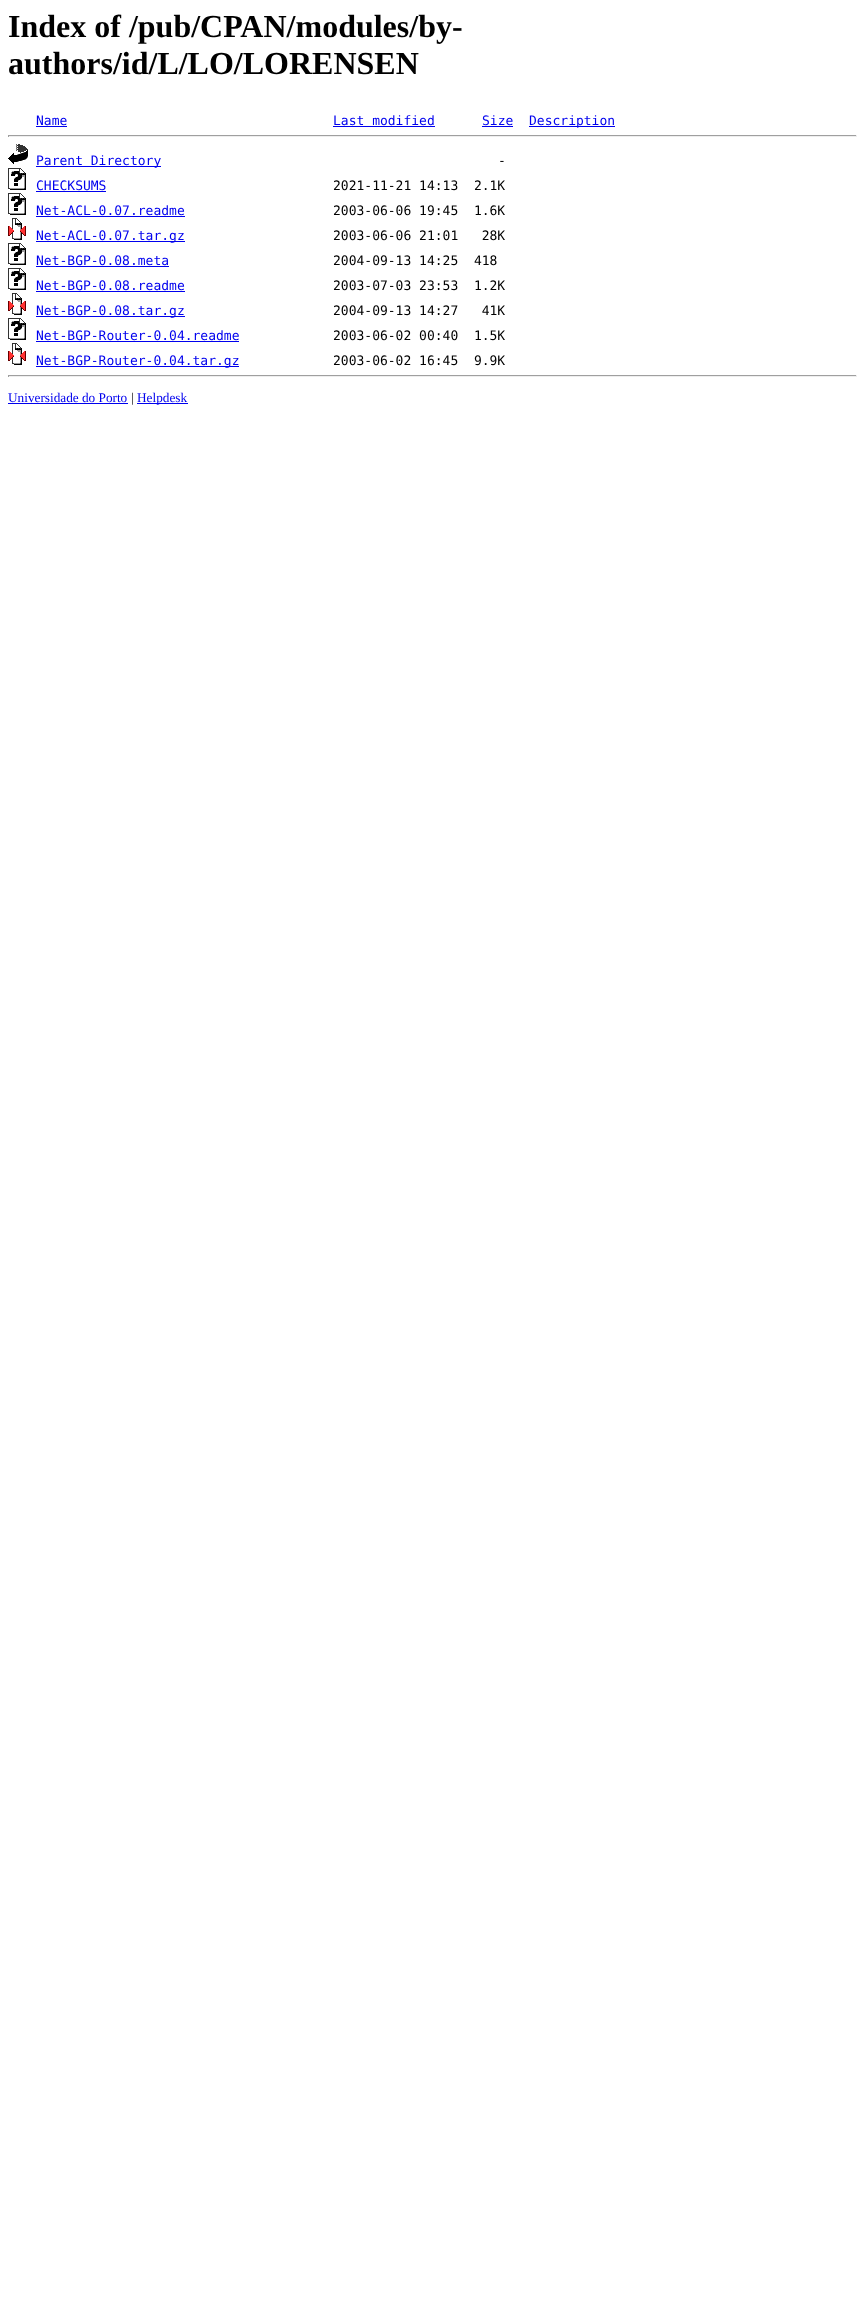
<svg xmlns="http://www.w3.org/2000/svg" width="865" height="2321">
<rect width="100%" height="100%" fill="#fff"/>
<text x="8" y="37" style="font-family:Liberation Serif;font-size:32px;font-weight:bold;fill:#000">Index of /pub/CPAN/modules/by-</text>
<text x="8" y="74" style="font-family:Liberation Serif;font-size:32px;font-weight:bold;fill:#000">authors/id/L/LO/LORENSEN</text>
<text x="36" y="125" style="font-family:DejaVu Sans Mono;font-size:13px;fill:#00e">Name</text>
<rect x="36" y="126" width="31" height="1" fill="#00e"/>
<text x="333" y="125" style="font-family:DejaVu Sans Mono;font-size:13px;fill:#00e">Last modified</text>
<rect x="333" y="126" width="102" height="1" fill="#00e"/>
<text x="482" y="125" style="font-family:DejaVu Sans Mono;font-size:13px;fill:#00e">Size</text>
<rect x="482" y="126" width="31" height="1" fill="#00e"/>
<rect x="529" y="126" width="86" height="1" fill="#00e"/>
<text x="529" y="125" style="font-family:DejaVu Sans Mono;font-size:13px;fill:#00e">Description</text>
<rect x="8" y="135" width="849" height="1" fill="#9f9f9f"/>
<rect x="856" y="135" width="1" height="2" fill="#eee"/>
<rect x="8" y="136" width="849" height="1" fill="#eee"/>
<rect x="8" y="135" width="1" height="2" fill="#9f9f9f"/>
<image x="8" y="144" width="20" height="20" href="media/1.png"/>
<rect x="36" y="166" width="125" height="1" fill="#00e"/>
<text x="36" y="165" style="font-family:DejaVu Sans Mono;font-size:13px;fill:#00e">Parent Directory</text>
<text x="498" y="165" style="font-family:DejaVu Sans Mono;font-size:13px;fill:#000">-</text>
<image x="8" y="168" width="18" height="22" href="media/2.png"/>
<text x="36" y="190" style="font-family:DejaVu Sans Mono;font-size:13px;fill:#00e">CHECKSUMS</text>
<rect x="36" y="191" width="70" height="1" fill="#00e"/>
<text x="333" y="190" style="font-family:DejaVu Sans Mono;font-size:13px;fill:#000" xml:space="preserve">2021-11-21 14:13  2.1K</text>
<image x="8" y="193" width="18" height="22" href="media/2.png"/>
<text x="36" y="215" style="font-family:DejaVu Sans Mono;font-size:13px;fill:#00e">Net-ACL-0.07.readme</text>
<rect x="36" y="216" width="149" height="1" fill="#00e"/>
<text x="333" y="215" style="font-family:DejaVu Sans Mono;font-size:13px;fill:#000" xml:space="preserve">2003-06-06 19:45  1.6K</text>
<image x="8" y="218" width="18" height="22" href="media/3.png"/>
<rect x="36" y="241" width="149" height="1" fill="#00e"/>
<text x="36" y="240" style="font-family:DejaVu Sans Mono;font-size:13px;fill:#00e">Net-ACL-0.07.tar.gz</text>
<text x="333" y="240" style="font-family:DejaVu Sans Mono;font-size:13px;fill:#000" xml:space="preserve">2003-06-06 21:01   28K</text>
<image x="8" y="243" width="18" height="22" href="media/2.png"/>
<text x="36" y="265" style="font-family:DejaVu Sans Mono;font-size:13px;fill:#00e">Net-BGP-0.08.meta</text>
<rect x="36" y="266" width="133" height="1" fill="#00e"/>
<text x="333" y="265" style="font-family:DejaVu Sans Mono;font-size:13px;fill:#000" xml:space="preserve">2004-09-13 14:25  418</text>
<image x="8" y="268" width="18" height="22" href="media/2.png"/>
<text x="36" y="290" style="font-family:DejaVu Sans Mono;font-size:13px;fill:#00e">Net-BGP-0.08.readme</text>
<rect x="36" y="291" width="149" height="1" fill="#00e"/>
<text x="333" y="290" style="font-family:DejaVu Sans Mono;font-size:13px;fill:#000" xml:space="preserve">2003-07-03 23:53  1.2K</text>
<image x="8" y="293" width="18" height="22" href="media/3.png"/>
<rect x="36" y="316" width="149" height="1" fill="#00e"/>
<text x="36" y="315" style="font-family:DejaVu Sans Mono;font-size:13px;fill:#00e">Net-BGP-0.08.tar.gz</text>
<text x="333" y="315" style="font-family:DejaVu Sans Mono;font-size:13px;fill:#000" xml:space="preserve">2004-09-13 14:27   41K</text>
<image x="8" y="318" width="18" height="22" href="media/2.png"/>
<text x="36" y="340" style="font-family:DejaVu Sans Mono;font-size:13px;fill:#00e">Net-BGP-Router-0.04.readme</text>
<rect x="36" y="341" width="203" height="1" fill="#00e"/>
<text x="333" y="340" style="font-family:DejaVu Sans Mono;font-size:13px;fill:#000" xml:space="preserve">2003-06-02 00:40  1.5K</text>
<image x="8" y="343" width="18" height="22" href="media/3.png"/>
<rect x="36" y="366" width="203" height="1" fill="#00e"/>
<text x="36" y="365" style="font-family:DejaVu Sans Mono;font-size:13px;fill:#00e">Net-BGP-Router-0.04.tar.gz</text>
<text x="333" y="365" style="font-family:DejaVu Sans Mono;font-size:13px;fill:#000" xml:space="preserve">2003-06-02 16:45  9.9K</text>
<rect x="8" y="375" width="849" height="1" fill="#9f9f9f"/>
<rect x="856" y="375" width="1" height="2" fill="#eee"/>
<rect x="8" y="376" width="849" height="1" fill="#eee"/>
<rect x="8" y="375" width="1" height="2" fill="#9f9f9f"/>
<text x="8" y="402" style="font-family:Liberation Serif;font-size:13.25px;fill:#00e">Universidade do Porto</text>
<rect x="8" y="403" width="120" height="1" fill="#00e"/>
<text x="131" y="402" style="font-family:Liberation Serif;font-size:13.25px;fill:#000">|</text>
<rect x="137" y="403" width="51" height="1" fill="#00e"/>
<text x="137" y="402" style="font-family:Liberation Serif;font-size:13.25px;fill:#00e">Helpdesk</text>
</svg>
